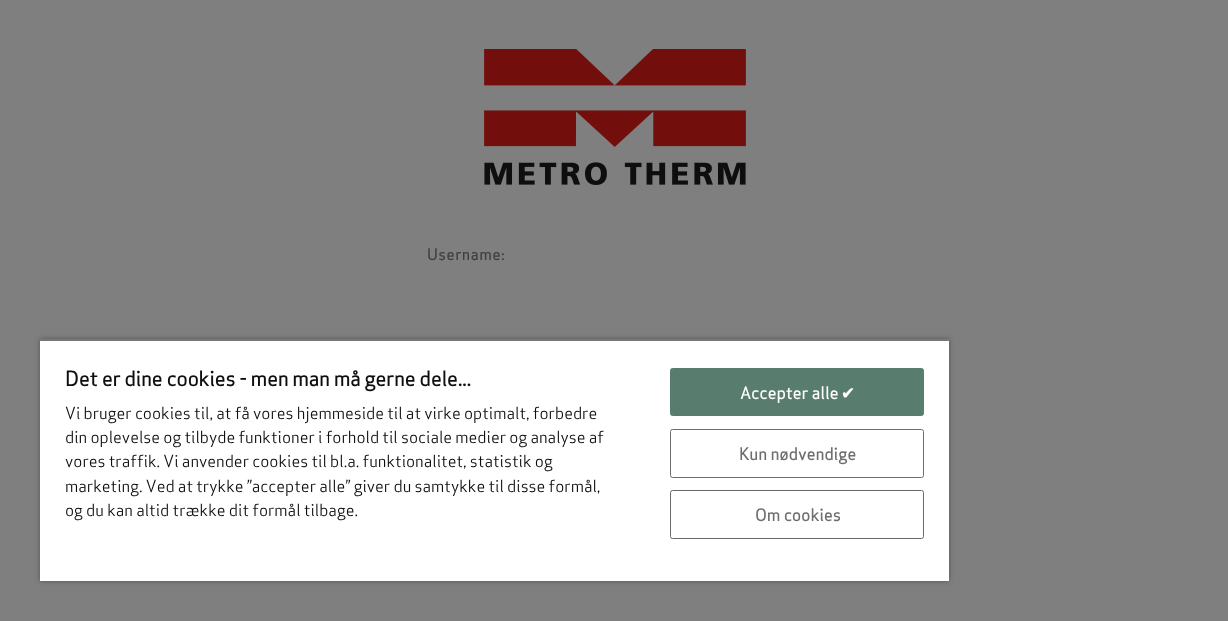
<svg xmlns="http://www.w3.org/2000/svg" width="1228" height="621">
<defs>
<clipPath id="clip1"><path d="M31 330h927v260h-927zm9 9h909v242h-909z" clip-rule="evenodd"/></clipPath>
<clipPath id="clip2"><rect x="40" y="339" width="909" height="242"/></clipPath>
</defs>
<rect width="100%" height="100%" fill="#7f7f7f"/>
<image x="484" y="49" width="262" height="136" href="media/1.png"/>
<text x="427" y="260" style="font-family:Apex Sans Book;font-size:15px;font-weight:bold;letter-spacing:0.75px;fill:#3f3f3f">Username:</text>
<g clip-path="url(#clip1)">
<rect x="40" y="339" width="909" height="242" fill="#00000059" filter="blur(2.5px)"/>
</g>
<g clip-path="url(#clip2)">
<rect x="40" y="341" width="909" height="240" fill="#00000033" filter="blur(2.5px)"/>
</g>
<rect x="40" y="341" width="909" height="240" fill="#fff"/>
<text x="65" y="386" style="font-family:Apex Sans Book;font-size:20px;font-weight:bold;fill:#0f0f0f">Det er dine cookies - men man må gerne dele...</text>
<text x="65" y="419" style="font-family:Apex Sans Book;font-size:16.25px;fill:#0f0f0f">Vi bruger cookies til, at få vores hjemmeside til at virke optimalt, forbedre</text>
<text x="65" y="443" style="font-family:Apex Sans Book;font-size:16.25px;fill:#0f0f0f">din oplevelse og tilbyde funktioner i forhold til sociale medier og analyse af</text>
<text x="65" y="467" style="font-family:Apex Sans Book;font-size:16.25px;fill:#0f0f0f">vores traffik. Vi anvender cookies til bl.a. funktionalitet, statistik og</text>
<text x="65" y="492" style="font-family:Apex Sans Book;font-size:16.25px;fill:#0f0f0f">marketing. Ved at trykke ”accepter alle” giver du samtykke til disse formål,</text>
<text x="65" y="516" style="font-family:Apex Sans Book;font-size:16.25px;fill:#0f0f0f">og du kan altid trække dit formål tilbage.</text>
<rect x="670.5" y="368.5" width="253" height="47" rx="2" fill="#587c6d" stroke="#587c6d"/>
<text x="740" y="399" style="font-family:Apex Sans Book;font-size:16.25px;font-weight:bold;letter-spacing:0.2px;fill:#fff">Accepter alle</text>
<text x="841" y="399" style="font-family:DejaVu Sans;font-size:16.25px;font-weight:bold;letter-spacing:0.2px;fill:#fff">✔</text>
<rect x="670.5" y="429.5" width="253" height="48" rx="2" fill="none" stroke="#6e6e6e"/>
<text x="739" y="460" style="font-family:Apex Sans Book;font-size:16.25px;font-weight:bold;letter-spacing:0.2px;fill:#6e6e6e">Kun nødvendige</text>
<rect x="670.5" y="490.5" width="253" height="48" rx="2" fill="none" stroke="#696969"/>
<text x="755" y="521" style="font-family:Apex Sans Book;font-size:16.25px;font-weight:bold;letter-spacing:0.2px;fill:#6e6e6e">Om cookies</text>
</svg>
